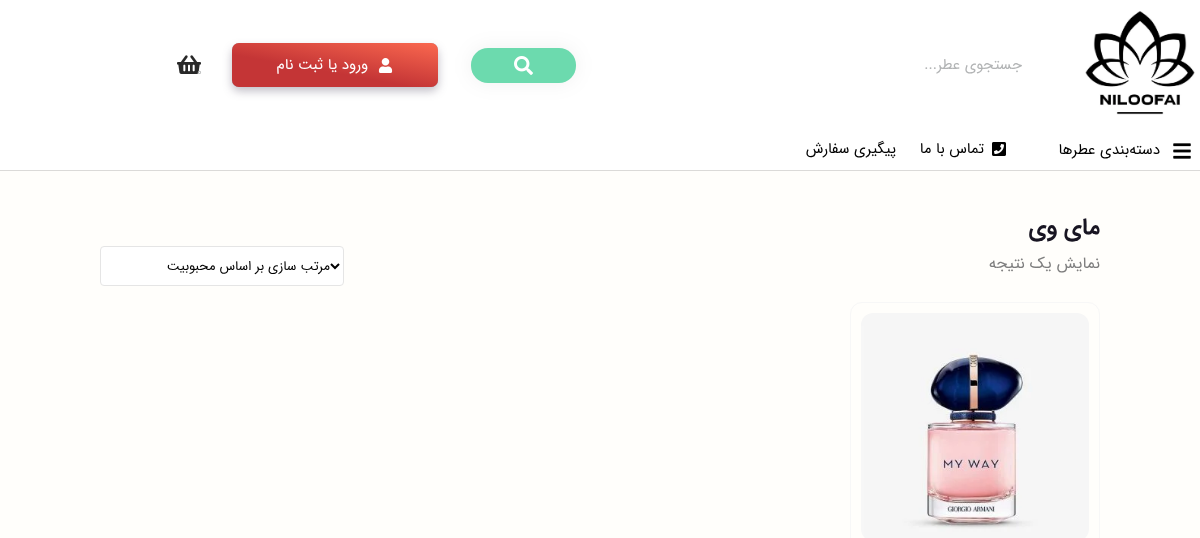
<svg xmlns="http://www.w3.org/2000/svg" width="1200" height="538">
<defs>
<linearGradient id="g1" gradientUnits="userSpaceOnUse" x1="342" y1="26" x2="328" y2="104"><stop offset="0" stop-color="#fa684f"/><stop offset="0.6" stop-color="#c43536"/></linearGradient>
</defs>
<rect width="100%" height="100%" fill="#fffefb"/>
<rect width="1200" height="170" fill="#fff"/>
<image x="1085" y="11" width="110" height="104" href="media/1.png"/>
<text x="1022" y="69" style="font-family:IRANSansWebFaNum;font-size:15px;direction:rtl;fill:#b2b4b5">جستجوی عطر...</text>
<rect x="471" y="48" width="105" height="35" rx="17" fill="#0000000f" filter="blur(10px)"/>
<rect x="471" y="48" width="105" height="35" rx="17" fill="#6cdaae"/>
<image x="514" y="56" width="19" height="19" href="media/2.png"/>
<rect x="232" y="48" width="206" height="43" rx="7" fill="#2d23424d" filter="blur(5px)"/>
<rect x="232" y="43" width="206" height="44" rx="7" fill="#2d234266" filter="blur(0.5px)"/>
<rect x="232" y="43" width="206" height="44" rx="7" fill="url(#g1)"/>
<image x="378" y="58" width="15" height="15" href="media/3.png"/>
<text x="368" y="69" style="font-family:IRANSansWebFaNum;font-size:15px;direction:rtl;fill:#fff">ورود یا ثبت نام</text>
<image x="177" y="55" width="24" height="19" href="media/4.png"/>
<text x="197" y="75" style="font-family:IRANSansWebFaNum;font-size:11px;fill:#b2b4b5">0</text>
<rect y="170" width="1200" height="1" fill="#dbdad8"/>
<image x="1173" y="143" width="18" height="16" href="media/5.png"/>
<text x="1160" y="154" style="font-family:IRANSansWebFaNum;font-size:15px;direction:rtl;fill:#000">دسته‌بندی عطرها</text>
<image x="992" y="142" width="14" height="14" href="media/6.png"/>
<text x="984" y="153" style="font-family:IRANSansWebFaNum;font-size:15px;direction:rtl;fill:#000">تماس با ما</text>
<text x="896" y="153" style="font-family:IRANSansWebFaNum;font-size:15px;direction:rtl;fill:#000">پیگیری سفارش</text>
<text x="1100" y="234" style="font-family:IRANSansWebFaNum;font-size:23px;font-weight:bold;direction:rtl;fill:#181522">مای وی</text>
<text x="1100" y="268" style="font-family:IRANSansWebFaNum;font-size:16px;direction:rtl;fill:#7e7e7e">نمایش یک نتیجه</text>
<rect x="100.5" y="246.5" width="243" height="39" rx="3.5" fill="#fff" stroke="#e5e5e5"/>
<path d="M331 264l4 4l4-4" fill="none" stroke="#000" stroke-width="2"/>
<text x="330" y="270" style="font-family:IRANSansWebFaNum;font-size:13.25px;direction:rtl;fill:#000">مرتب سازی بر اساس محبوبیت</text>
<rect x="850.5" y="302.5" width="249" height="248" rx="11.5" fill="none" stroke="#f7f7f7"/>
<image x="861" y="313" width="228" height="225" href="media/7.png"/>
</svg>
